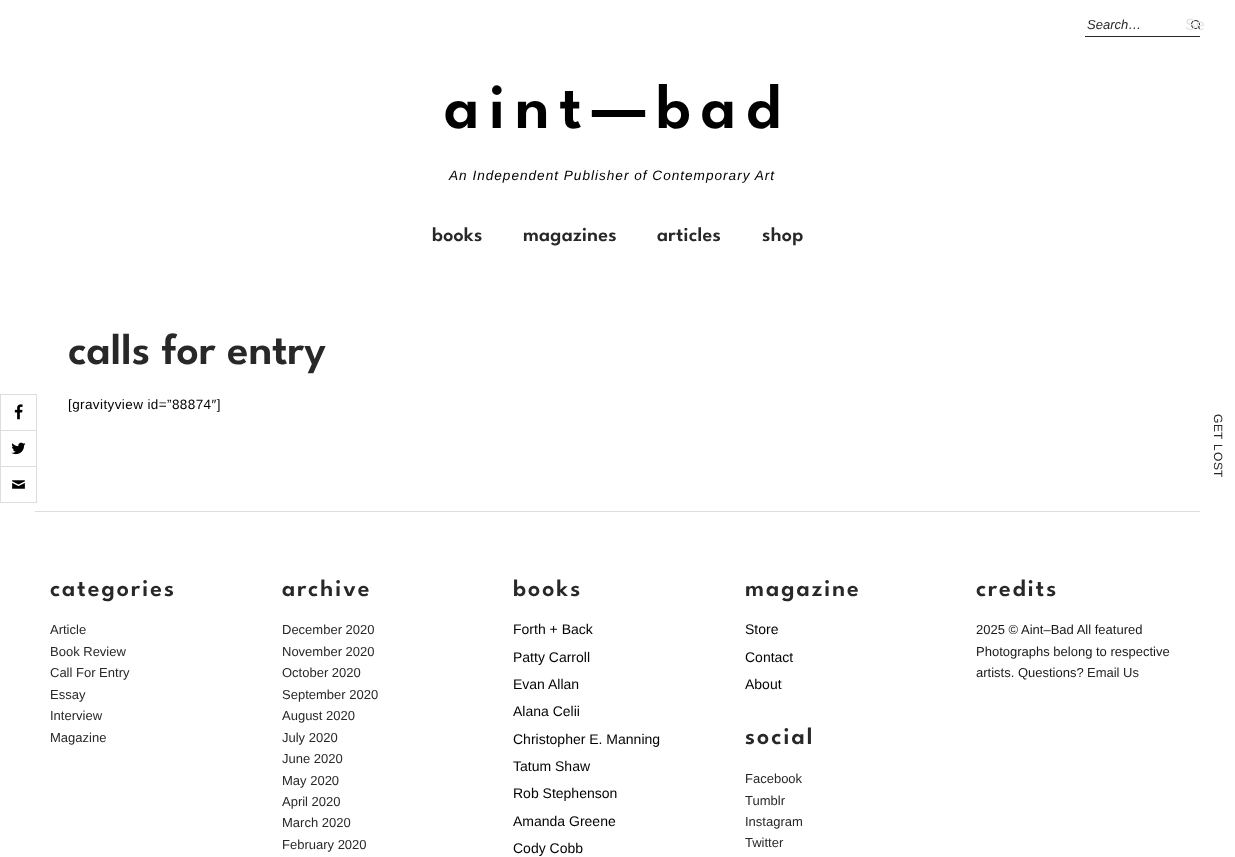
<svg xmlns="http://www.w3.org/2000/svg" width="1235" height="857">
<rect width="100%" height="100%" fill="#fff"/>
<rect x="1085" y="36" width="120" height="1" fill="#282828"/>
<text x="1087" y="29" style="font-family:Liberation Sans;font-size:13px;font-style:italic;fill:#282828">Search…</text>
<image x="1191" y="20" width="9" height="10" href="media/1.png"/>
<text x="1185" y="30" style="font-family:Liberation Sans;font-size:16px;fill:#e3e3e3">Se</text>
<text x="444" y="128" style="font-family:League Spartan;font-size:64px;font-weight:600;letter-spacing:10px;fill:#000">aint—bad</text>
<text x="449" y="180" style="font-family:Liberation Sans;font-size:13.6px;font-style:italic;letter-spacing:1px;fill:#000">An Independent Publisher of Contemporary Art</text>
<text x="432" y="241" style="font-family:League Spartan;font-size:20px;font-weight:600;letter-spacing:0.25px;fill:#282828">books</text>
<text x="523" y="241" style="font-family:League Spartan;font-size:20px;font-weight:600;letter-spacing:0.25px;fill:#282828">magazines</text>
<text x="657" y="241" style="font-family:League Spartan;font-size:20px;font-weight:600;letter-spacing:0.25px;fill:#282828">articles</text>
<text x="762" y="241" style="font-family:League Spartan;font-size:20px;font-weight:600;letter-spacing:0.25px;fill:#282828">shop</text>
<rect x="0.5" y="394.5" width="36" height="108" fill="none" stroke="#ddd"/>
<image x="14" y="404" width="9" height="16" href="media/2.png"/>
<rect x="1" y="430" width="35" height="1" fill="#ddd"/>
<image x="11" y="442" width="15" height="13" href="media/3.png"/>
<rect x="1" y="466" width="35" height="1" fill="#ddd"/>
<image x="12" y="480" width="13" height="9" href="media/4.png"/>
<text x="68" y="364" style="font-family:League Spartan;font-size:44px;font-weight:600;fill:#282828">calls for entry</text>
<text x="68" y="409" style="font-family:Liberation Sans;font-size:13.5px;letter-spacing:0.4px;fill:#000">[gravityview id=”88874″]</text>
<rect x="35" y="511" width="1165" height="1" fill="#ddd"/>
<text x="50" y="596" style="font-family:League Spartan;font-size:24px;font-weight:600;letter-spacing:2px;fill:#282828">categories</text>
<text x="50" y="634" style="font-family:Liberation Sans;font-size:13px;fill:#282828">Article</text>
<text x="50" y="656" style="font-family:Liberation Sans;font-size:13px;fill:#282828">Book Review</text>
<text x="50" y="677" style="font-family:Liberation Sans;font-size:13px;fill:#282828">Call For Entry</text>
<text x="50" y="699" style="font-family:Liberation Sans;font-size:13px;fill:#282828">Essay</text>
<text x="50" y="720" style="font-family:Liberation Sans;font-size:13px;fill:#282828">Interview</text>
<text x="50" y="742" style="font-family:Liberation Sans;font-size:13px;fill:#282828">Magazine</text>
<text x="282" y="596" style="font-family:League Spartan;font-size:24px;font-weight:600;letter-spacing:2px;fill:#282828">archive</text>
<text x="282" y="634" style="font-family:Liberation Sans;font-size:13px;fill:#282828">December 2020</text>
<text x="282" y="656" style="font-family:Liberation Sans;font-size:13px;fill:#282828">November 2020</text>
<text x="282" y="677" style="font-family:Liberation Sans;font-size:13px;fill:#282828">October 2020</text>
<text x="282" y="699" style="font-family:Liberation Sans;font-size:13px;fill:#282828">September 2020</text>
<text x="282" y="720" style="font-family:Liberation Sans;font-size:13px;fill:#282828">August 2020</text>
<text x="282" y="742" style="font-family:Liberation Sans;font-size:13px;fill:#282828">July 2020</text>
<text x="282" y="763" style="font-family:Liberation Sans;font-size:13px;fill:#282828">June 2020</text>
<text x="282" y="785" style="font-family:Liberation Sans;font-size:13px;fill:#282828">May 2020</text>
<text x="282" y="806" style="font-family:Liberation Sans;font-size:13px;fill:#282828">April 2020</text>
<text x="282" y="827" style="font-family:Liberation Sans;font-size:13px;fill:#282828">March 2020</text>
<text x="282" y="849" style="font-family:Liberation Sans;font-size:13px;fill:#282828">February 2020</text>
<text x="513" y="596" style="font-family:League Spartan;font-size:24px;font-weight:600;letter-spacing:2px;fill:#282828">books</text>
<text x="513" y="634" style="font-family:Liberation Sans;font-size:14px;fill:#000">Forth + Back</text>
<text x="513" y="662" style="font-family:Liberation Sans;font-size:14px;fill:#000">Patty Carroll</text>
<text x="513" y="689" style="font-family:Liberation Sans;font-size:14px;fill:#000">Evan Allan</text>
<text x="513" y="716" style="font-family:Liberation Sans;font-size:14px;fill:#000">Alana Celii</text>
<text x="513" y="744" style="font-family:Liberation Sans;font-size:14px;fill:#000">Christopher E. Manning</text>
<text x="513" y="771" style="font-family:Liberation Sans;font-size:14px;fill:#000">Tatum Shaw</text>
<text x="513" y="798" style="font-family:Liberation Sans;font-size:14px;fill:#000">Rob Stephenson</text>
<text x="513" y="826" style="font-family:Liberation Sans;font-size:14px;fill:#000">Amanda Greene</text>
<text x="513" y="853" style="font-family:Liberation Sans;font-size:14px;fill:#000">Cody Cobb</text>
<text x="745" y="596" style="font-family:League Spartan;font-size:24px;font-weight:600;letter-spacing:2px;fill:#282828">magazine</text>
<text x="745" y="634" style="font-family:Liberation Sans;font-size:14px;fill:#000">Store</text>
<text x="745" y="662" style="font-family:Liberation Sans;font-size:14px;fill:#000">Contact</text>
<text x="745" y="689" style="font-family:Liberation Sans;font-size:14px;fill:#000">About</text>
<text x="745" y="744" style="font-family:League Spartan;font-size:24px;font-weight:600;letter-spacing:2px;fill:#282828">social</text>
<text x="745" y="783" style="font-family:Liberation Sans;font-size:13px;fill:#282828">Facebook</text>
<text x="745" y="805" style="font-family:Liberation Sans;font-size:13px;fill:#282828">Tumblr</text>
<text x="745" y="826" style="font-family:Liberation Sans;font-size:13px;fill:#282828">Instagram</text>
<text x="745" y="847" style="font-family:Liberation Sans;font-size:13px;fill:#282828">Twitter</text>
<text x="976" y="596" style="font-family:League Spartan;font-size:24px;font-weight:600;letter-spacing:2px;fill:#282828">credits</text>
<text x="976" y="634" style="font-family:Liberation Sans;font-size:13px;fill:#191919">2025 © Aint–Bad All featured</text>
<text x="976" y="656" style="font-family:Liberation Sans;font-size:13px;fill:#191919">Photographs belong to respective</text>
<text x="976" y="677" style="font-family:Liberation Sans;font-size:13px;fill:#191919">artists. Questions?</text>
<text x="1087" y="677" style="font-family:Liberation Sans;font-size:13px;fill:#282828">Email Us</text>
<rect x="1200" y="36" width="5" height="1" fill="#fff"/>
<text x="1214" y="414" transform="rotate(90 1214 414)" style="font-family:Liberation Sans;font-size:12px;letter-spacing:1px;fill:#282828">G</text>
<text x="1214" y="424" transform="rotate(90 1214 424)" style="font-family:Liberation Sans;font-size:12px;letter-spacing:1px;fill:#282828">E</text>
<text x="1214" y="432" transform="rotate(90 1214 432)" style="font-family:Liberation Sans;font-size:12px;letter-spacing:1px;fill:#282828">T</text>
<text x="1214" y="444" transform="rotate(90 1214 444)" style="font-family:Liberation Sans;font-size:12px;letter-spacing:1px;fill:#282828">L</text>
<text x="1214" y="452" transform="rotate(90 1214 452)" style="font-family:Liberation Sans;font-size:12px;letter-spacing:1px;fill:#282828">O</text>
<text x="1214" y="462" transform="rotate(90 1214 462)" style="font-family:Liberation Sans;font-size:12px;letter-spacing:1px;fill:#282828">S</text>
<text x="1214" y="470" transform="rotate(90 1214 470)" style="font-family:Liberation Sans;font-size:12px;letter-spacing:1px;fill:#282828">T</text>
</svg>
